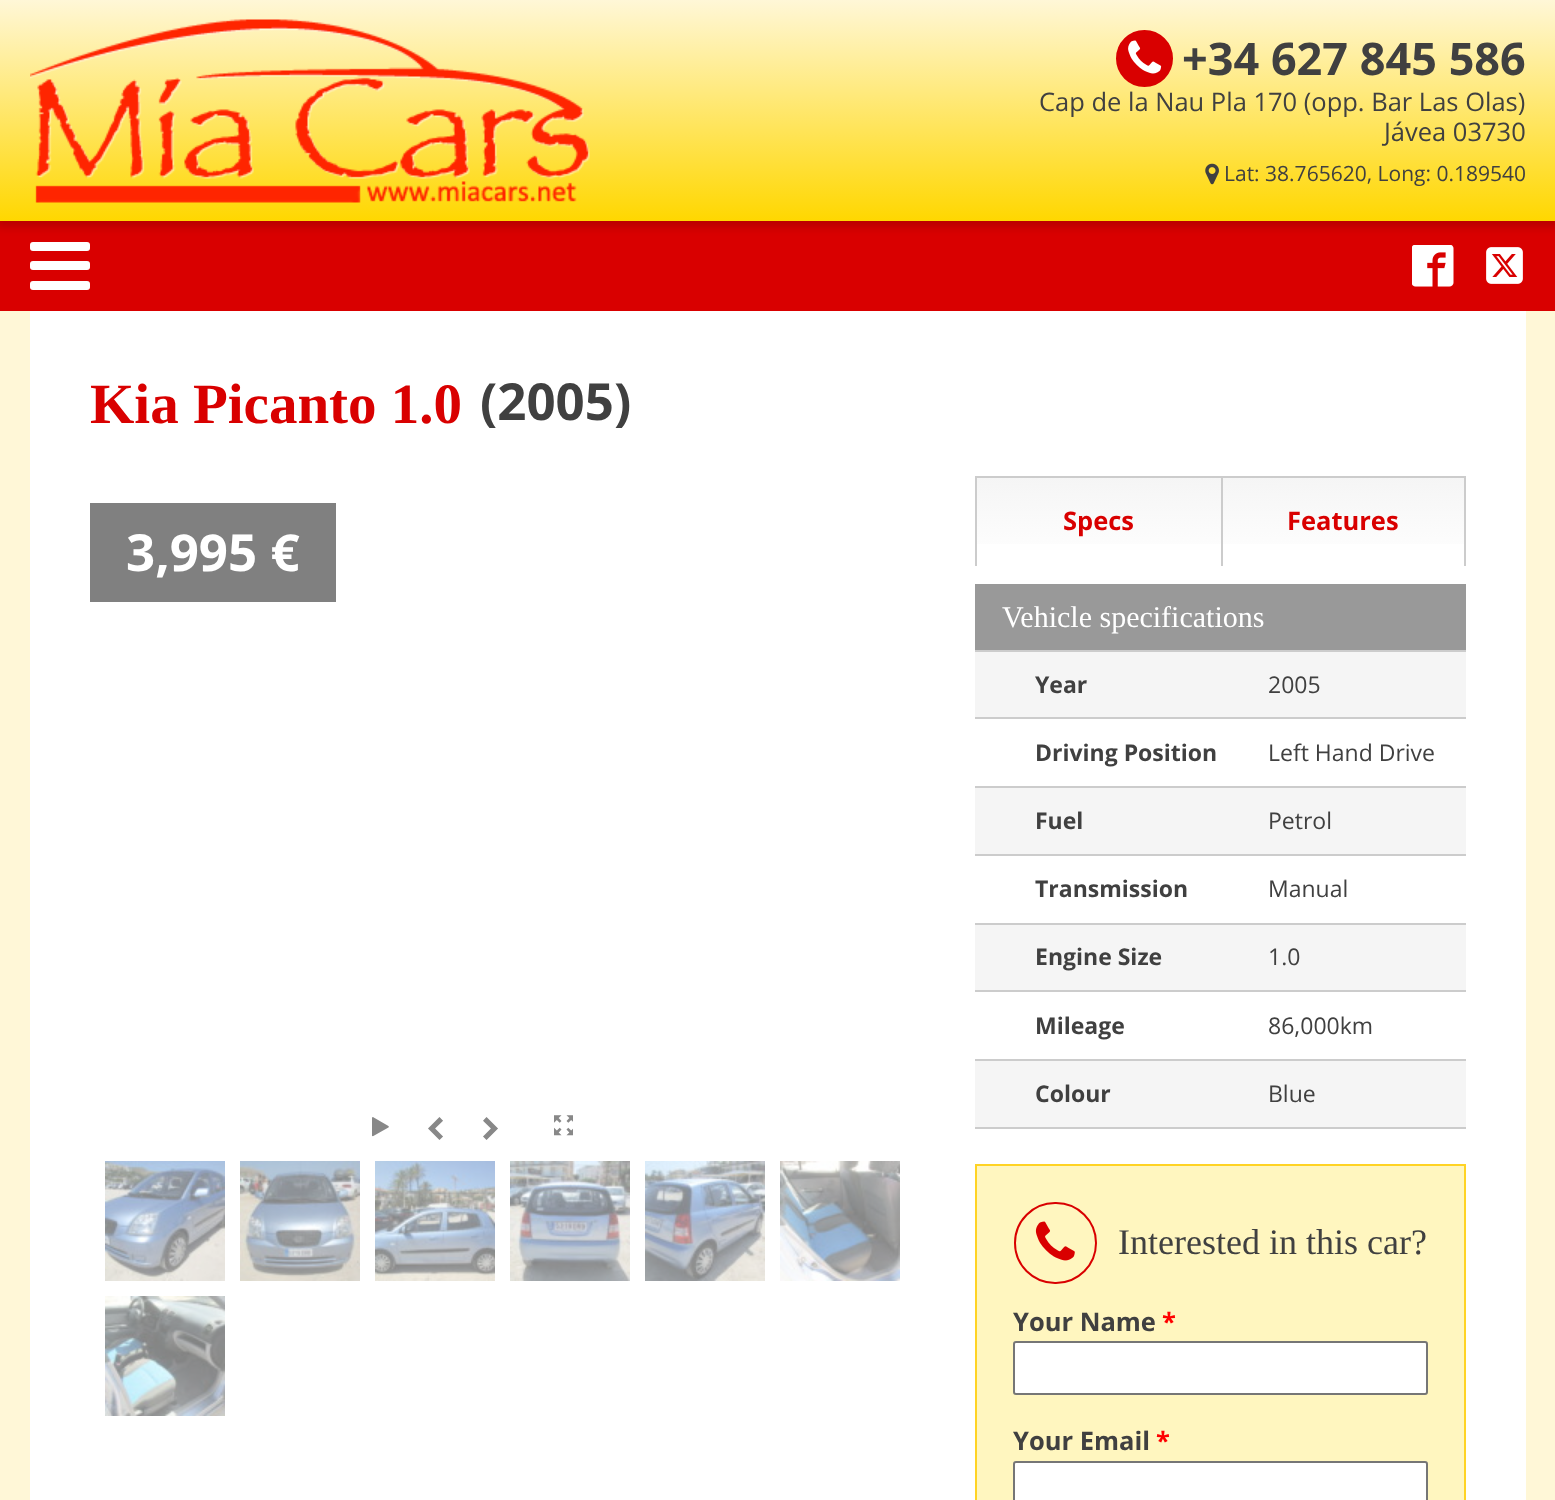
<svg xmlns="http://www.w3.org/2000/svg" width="1555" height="1500">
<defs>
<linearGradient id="g1" gradientUnits="userSpaceOnUse" x1="778" y1="0" x2="778" y2="221"><stop offset="0" stop-color="#fff7d7"/><stop offset="1" stop-color="#ffd700"/></linearGradient>
<clipPath id="clip1"><rect x="554" y="1115" width="19" height="24"/></clipPath>
<linearGradient id="g2" gradientUnits="userSpaceOnUse" x1="1099" y1="477" x2="1099" y2="566"><stop offset="0" stop-color="#f5f5f5"/><stop offset="1" stop-color="#fff"/></linearGradient>
<linearGradient id="g3" gradientUnits="userSpaceOnUse" x1="1343" y1="477" x2="1343" y2="566"><stop offset="0" stop-color="#f5f5f5"/><stop offset="1" stop-color="#fff"/></linearGradient>
</defs>
<rect width="100%" height="100%" fill="#d90000"/>
<rect x="-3" width="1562" height="227" fill="#00000026" filter="blur(4px)"/>
<rect width="1555" height="221" fill="url(#g1)"/>
<image x="30" y="19" width="560" height="184" href="media/1.png"/>
<circle cx="1144.5" cy="58.5" r="27.5" fill="#d90000" stroke="#d90000" stroke-width="2"/>
<image x="1128" y="40" width="34" height="34" href="media/2.png"/>
<text x="1182" y="75" style="font-family:Open Sans;font-size:45px;font-weight:bold;fill:#404040">+34 627 845 586</text>
<text x="1039" y="111" style="font-family:Open Sans;font-size:25.5px;fill:#404040">Cap de la Nau Pla 170 (opp. Bar Las Olas)</text>
<text x="1384" y="141" style="font-family:Open Sans;font-size:25.5px;fill:#404040">Jávea 03730</text>
<image x="1205" y="163" width="14" height="22" href="media/3.png"/>
<text x="1224" y="181" style="font-family:Open Sans;font-size:21px;fill:#404040">Lat: 38.765620, Long: 0.189540</text>
<rect x="30" y="242" width="60" height="9" rx="3" fill="#fff"/>
<rect x="30" y="261" width="60" height="9" rx="3" fill="#fff"/>
<rect x="30" y="281" width="60" height="9" rx="3" fill="#fff"/>
<image x="1412" y="245" width="42" height="42" href="media/4.png"/>
<image x="1486" y="247" width="37" height="37" href="media/5.png"/>
<rect y="311" width="1555" height="1189" fill="#fff7d7"/>
<rect x="30" y="311" width="1496" height="1189" fill="#fff"/>
<text x="90" y="423" style="font-family:Liberation Serif;font-size:57px;font-weight:bold;fill:#d90000">Kia Picanto 1.0</text>
<text x="480" y="420" style="font-family:Open Sans;font-size:51px;font-weight:bold;fill:#404040">(2005)</text>
<rect x="90" y="503" width="246" height="99" fill="#808080"/>
<text x="126" y="571" style="font-family:Open Sans;font-size:51px;font-weight:bold;fill:#fff">3,995 €</text>
<text x="372" y="1141" style="font-family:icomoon;font-size:25.5px;fill:#888">"</text>
<text x="428" y="1141" style="font-family:icomoon;font-size:25.5px;fill:#888">%</text>
<text x="483" y="1141" style="font-family:icomoon;font-size:25.5px;fill:#888">&amp;</text>
<g clip-path="url(#clip1)">
<text x="554" y="1134" style="font-family:icomoon;font-size:20px;fill:#888">'</text>
</g>
<image x="105" y="1161" width="120" height="120" href="media/6.png"/>
<image x="240" y="1161" width="120" height="120" href="media/7.png"/>
<image x="375" y="1161" width="120" height="120" href="media/8.png"/>
<image x="510" y="1161" width="120" height="120" href="media/9.png"/>
<image x="645" y="1161" width="120" height="120" href="media/10.png"/>
<image x="780" y="1161" width="120" height="120" href="media/11.png"/>
<image x="105" y="1296" width="120" height="120" href="media/12.png"/>
<rect x="977" y="478" width="244" height="66" fill="url(#g2)"/>
<rect x="975" y="476" width="491" height="2" fill="#ccc"/>
<rect x="975" y="476" width="2" height="90" fill="#ccc"/>
<text x="1063" y="530" style="font-family:Open Sans;font-size:25.5px;font-weight:bold;fill:#d90000">Specs</text>
<rect x="1223" y="478" width="241" height="66" fill="url(#g3)"/>
<rect x="1464" y="476" width="2" height="90" fill="#ccc"/>
<rect x="1221" y="476" width="2" height="90" fill="#ccc"/>
<text x="1287" y="530" style="font-family:Open Sans;font-size:25.5px;font-weight:bold;fill:#d90000">Features</text>
<rect x="975" y="584" width="491" height="66" fill="#999"/>
<text x="1002" y="627" style="font-family:Liberation Serif;font-size:30px;fill:#fff">Vehicle specifications</text>
<rect x="975" y="650" width="491" height="2" fill="#ccc"/>
<rect x="975" y="652" width="491" height="65" fill="#f5f5f5"/>
<rect x="975" y="717" width="491" height="2" fill="#ccc"/>
<text x="1035" y="693" style="font-family:Open Sans;font-size:23px;font-weight:bold;fill:#404040">Year</text>
<text x="1268" y="693" style="font-family:Open Sans;font-size:23px;fill:#404040">2005</text>
<rect x="975" y="786" width="491" height="2" fill="#ccc"/>
<text x="1035" y="761" style="font-family:Open Sans;font-size:23px;font-weight:bold;fill:#404040">Driving Position</text>
<text x="1268" y="761" style="font-family:Open Sans;font-size:23px;fill:#404040">Left Hand Drive</text>
<rect x="975" y="788" width="491" height="66" fill="#f5f5f5"/>
<rect x="975" y="854" width="491" height="2" fill="#ccc"/>
<text x="1035" y="829" style="font-family:Open Sans;font-size:23px;font-weight:bold;fill:#404040">Fuel</text>
<text x="1268" y="829" style="font-family:Open Sans;font-size:23px;fill:#404040">Petrol</text>
<rect x="975" y="923" width="491" height="2" fill="#ccc"/>
<text x="1035" y="897" style="font-family:Open Sans;font-size:23px;font-weight:bold;fill:#404040">Transmission</text>
<text x="1268" y="897" style="font-family:Open Sans;font-size:23px;fill:#404040">Manual</text>
<rect x="975" y="925" width="491" height="65" fill="#f5f5f5"/>
<rect x="975" y="990" width="491" height="2" fill="#ccc"/>
<text x="1035" y="965" style="font-family:Open Sans;font-size:23px;font-weight:bold;fill:#404040">Engine Size</text>
<text x="1268" y="965" style="font-family:Open Sans;font-size:23px;fill:#404040">1.0</text>
<rect x="975" y="1059" width="491" height="2" fill="#ccc"/>
<text x="1035" y="1034" style="font-family:Open Sans;font-size:23px;font-weight:bold;fill:#404040">Mileage</text>
<text x="1268" y="1034" style="font-family:Open Sans;font-size:23px;fill:#404040">86,000km</text>
<rect x="975" y="1061" width="491" height="66" fill="#f5f5f5"/>
<rect x="975" y="1127" width="491" height="2" fill="#ccc"/>
<text x="1035" y="1102" style="font-family:Open Sans;font-size:23px;font-weight:bold;fill:#404040">Colour</text>
<text x="1268" y="1102" style="font-family:Open Sans;font-size:23px;fill:#404040">Blue</text>
<rect x="976" y="1165" width="489" height="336" fill="#fff6bf" stroke="#ffd324" stroke-width="2"/>
<rect x="1015" y="1203" width="81" height="80" rx="40" fill="none" stroke="#d90000" stroke-width="2"/>
<image x="1035" y="1221" width="40" height="40" href="media/13.png"/>
<text x="1118" y="1254" style="font-family:Liberation Serif;font-size:36px;fill:#404040">Interested in this car?</text>
<text x="1013" y="1331" style="font-family:Open Sans;font-size:25.5px;font-weight:bold;fill:#404040">Your Name</text>
<text x="1162" y="1331" style="font-family:Open Sans;font-size:25.5px;font-weight:bold;fill:#f00">*</text>
<rect x="1014" y="1342" width="413" height="52" rx="2" fill="#fff" stroke="#767676" stroke-width="2"/>
<text x="1013" y="1450" style="font-family:Open Sans;font-size:25.5px;font-weight:bold;fill:#404040">Your Email</text>
<text x="1156" y="1450" style="font-family:Open Sans;font-size:25.5px;font-weight:bold;fill:#f00">*</text>
<rect x="1014" y="1462" width="413" height="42" rx="2" fill="#fff" stroke="#767676" stroke-width="2"/>
</svg>
